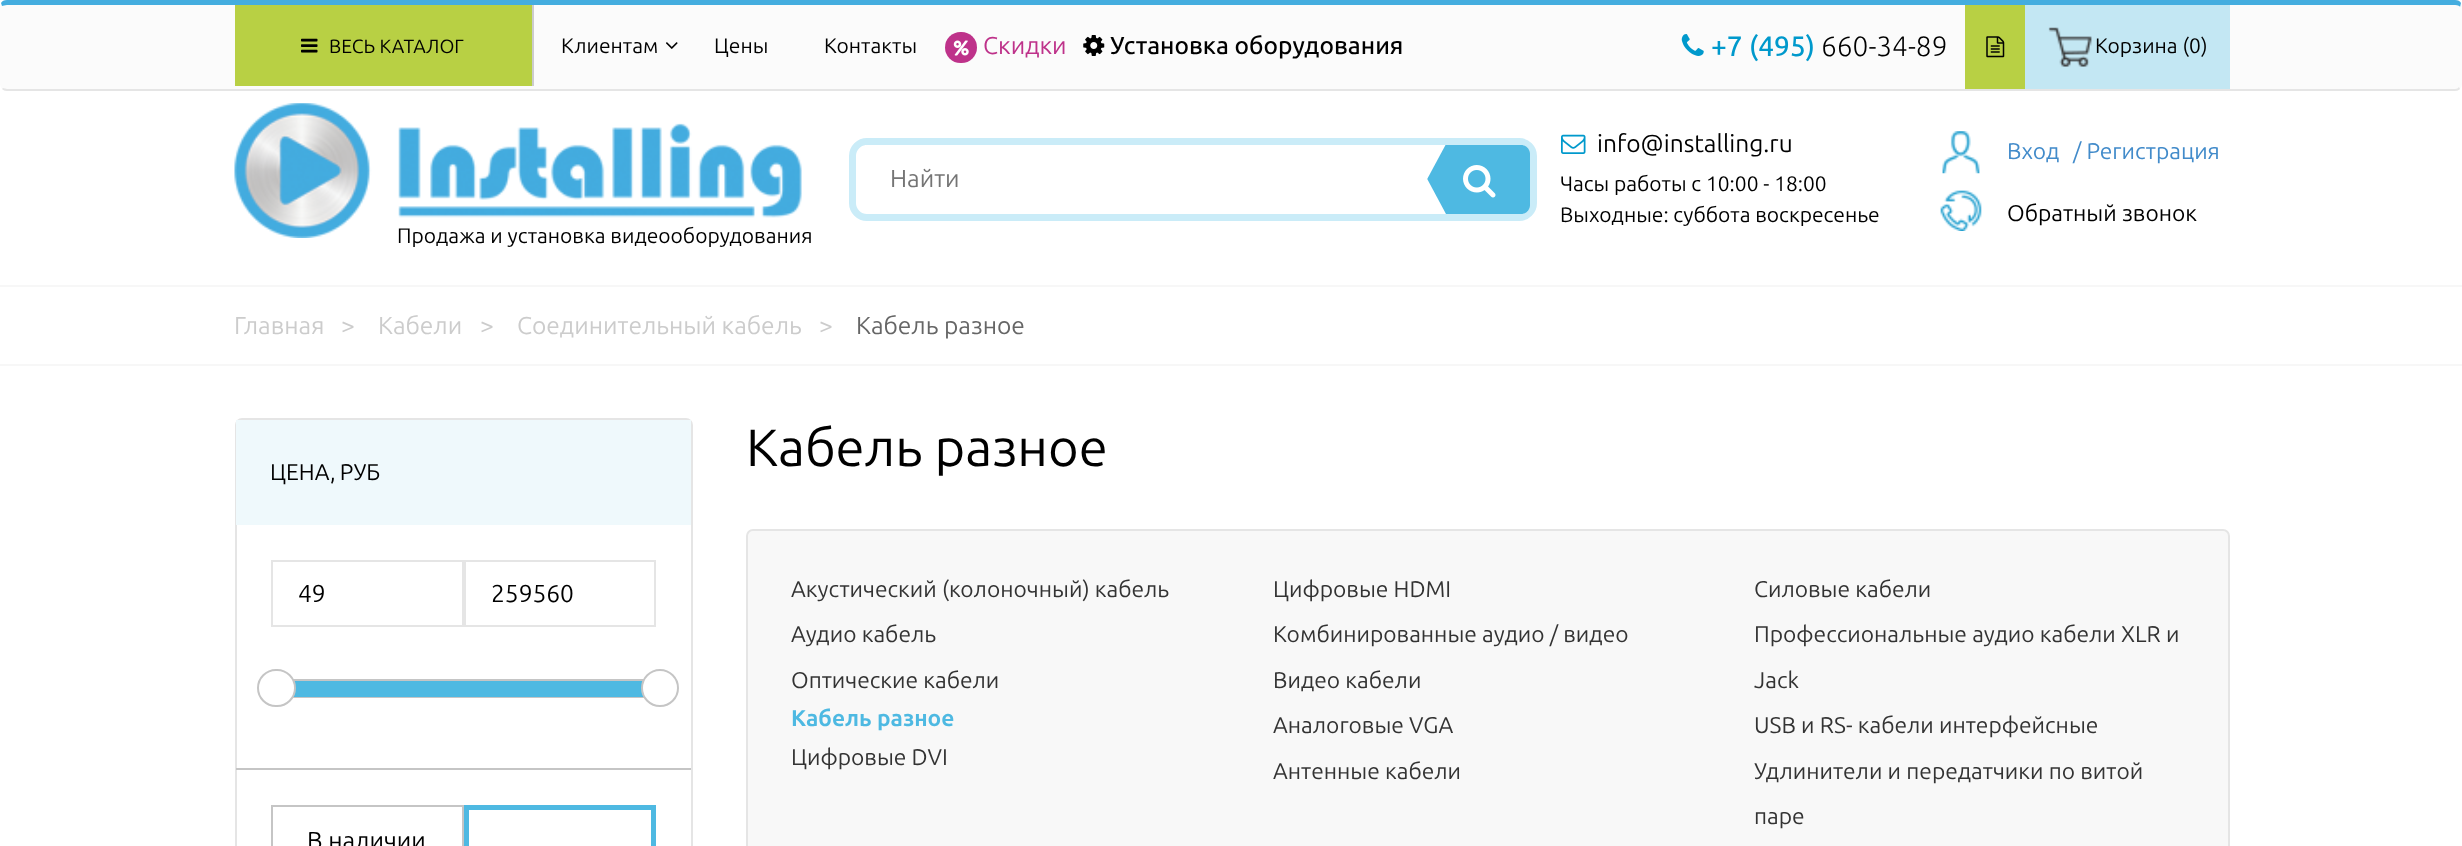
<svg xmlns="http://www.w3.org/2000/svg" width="2462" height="846">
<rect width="100%" height="100%" fill="#fff"/>
<rect width="2462" height="91" rx="7" fill="#fbfbfb"/>
<path d="M7 0c-3 0-5 1-6 3l1 3c1 0 3-1 5-1h2448c3 0 5 1 5 2l1-4c-1-2-3-3-6-3z" fill="#44addf"/>
<path d="M7 91h2448c2 0 4-1 5-2l-1-2c-1 1-2 2-4 2h-2448c-1 0-3-1-4-1l-1 1c1 1 3 2 5 2z" fill="#e5e5e5"/>
<rect x="532" y="5" width="2" height="81" fill="#ccc"/>
<rect x="235" y="5" width="297" height="81" fill="#b8d044"/>
<image x="301" y="38" width="17" height="15" href="media/1.png"/>
<text x="329" y="53" style="font-family:Ubuntu;font-size:19.25px;fill:#000">ВЕСЬ КАТАЛОГ</text>
<text x="561" y="53" style="font-family:Ubuntu;font-size:21px;fill:#000">Клиентам</text>
<image x="666" y="42" width="12" height="7" href="media/2.png"/>
<text x="714" y="53" style="font-family:Ubuntu;font-size:21px;fill:#000">Цены</text>
<text x="824" y="53" style="font-family:Ubuntu;font-size:21px;fill:#000">Контакты</text>
<rect x="945" y="32" width="32" height="31" rx="15.5" fill="#be328a"/>
<image x="953" y="40" width="16" height="16" href="media/3.png"/>
<text x="983" y="54" style="font-family:Ubuntu;font-size:24.5px;fill:#be328a">Скидки</text>
<image x="1083" y="35" width="22" height="21" href="media/4.png"/>
<text x="1110" y="54" style="font-family:Ubuntu;font-size:24.5px;font-weight:500;fill:#000">Установка оборудования</text>
<image x="1681" y="34" width="23" height="22" href="media/5.png"/>
<text x="1711" y="56" style="font-family:Ubuntu;font-size:28px;font-weight:500;fill:#09c">+7 (495)</text>
<text x="1821" y="56" style="font-family:Ubuntu;font-size:28px;font-weight:300;fill:#000">660-34-89</text>
<rect x="1965" y="5" width="60" height="84" fill="#b8d044"/>
<image x="1986" y="36" width="19" height="22" href="media/6.png"/>
<rect x="2025" y="5" width="205" height="84" fill="#c3e7f3"/>
<image x="2048" y="27" width="44" height="40" href="media/7.png"/>
<text x="2095" y="53" style="font-family:Ubuntu;font-size:21px;fill:#000">Корзина (0)</text>
<rect x="852.5" y="141.5" width="681" height="76" rx="14.5" fill="none" stroke="#caecf8" stroke-width="7"/>
<rect x="865" y="145" width="1" height="1" fill="#fff"/>
<text x="890" y="187" style="font-family:Ubuntu;font-size:24.5px;fill:#757575">Найти</text>
<path d="M1425 145h96c5 0 9 4 9 9v51c0 5-4 9-9 9h-96z" fill="#4eb9e2"/>
<path d="M1424.5 145h21l-21 39z" fill="#fff"/>
<image x="1463" y="165" width="33" height="33" href="media/8.png"/>
<path d="M1446 214h-22v-41z" fill="#fff"/>
<image x="1561" y="134" width="25" height="20" href="media/9.png"/>
<text x="1597" y="152" style="font-family:Ubuntu;font-size:24.5px;fill:#000">info@installing.ru</text>
<text x="1560" y="191" style="font-family:Ubuntu;font-size:21px;fill:#000">Часы работы с 10:00 - 18:00</text>
<text x="1560" y="222" style="font-family:Ubuntu;font-size:21px;fill:#000">Выходные: суббота воскресенье</text>
<image x="1942" y="131" width="38" height="43" href="media/10.png"/>
<text x="2007" y="159" style="font-family:Ubuntu;font-size:22.75px;fill:#428bca">Вход</text>
<text x="2073" y="159" style="font-family:Ubuntu;font-size:22.75px;fill:#428bca">/ Регистрация</text>
<image x="1940" y="190" width="42" height="41" href="media/11.png"/>
<text x="2007" y="221" style="font-family:Ubuntu;font-size:22.75px;fill:#000">Обратный звонок</text>
<image x="234" y="103" width="568" height="135" href="media/12.png"/>
<text x="397" y="243" style="font-family:Ubuntu;font-size:21px;fill:#000">Продажа и установка видеооборудования</text>
<rect y="285" width="2462" height="2" fill="#f7f7f7"/>
<rect y="364" width="2462" height="2" fill="#f7f7f7"/>
<text x="234" y="334" style="font-family:Ubuntu;font-size:24.5px;fill:#ccc">Главная</text>
<text x="341" y="334" style="font-family:Ubuntu;font-size:24.5px;fill:#ccc">&gt;</text>
<text x="378" y="334" style="font-family:Ubuntu;font-size:24.5px;fill:#ccc">Кабели</text>
<text x="480" y="334" style="font-family:Ubuntu;font-size:24.5px;fill:#ccc">&gt;</text>
<text x="517" y="334" style="font-family:Ubuntu;font-size:24.5px;fill:#ccc">Соединительный кабель</text>
<text x="819" y="334" style="font-family:Ubuntu;font-size:24.5px;fill:#ccc">&gt;</text>
<text x="856" y="334" style="font-family:Ubuntu;font-size:24.5px;fill:#666">Кабель разное</text>
<rect x="236" y="419" width="456" height="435" rx="6" fill="none" stroke="#e5e5e5" stroke-width="2"/>
<rect x="236" y="420" width="455" height="105" fill="#eff9fc"/>
<text x="270" y="480" word-spacing="-1" style="font-family:Ubuntu;font-size:22.75px;fill:#000">ЦЕНА, РУБ</text>
<rect x="272" y="561" width="191" height="65" fill="none" stroke="#e5e5e5" stroke-width="2"/>
<text x="298" y="602" style="font-family:Ubuntu;font-size:24.5px;fill:#000">49</text>
<rect x="465" y="561" width="190" height="65" fill="none" stroke="#e5e5e5" stroke-width="2"/>
<text x="491" y="602" style="font-family:Ubuntu;font-size:24.5px;fill:#000">259560</text>
<rect x="272" y="680" width="383" height="17" fill="none" stroke="#c5c5c5" stroke-width="2"/>
<rect x="293" y="681" width="351" height="16" fill="#4eb9e2"/>
<rect x="258" y="670" width="37" height="36" rx="18" fill="#fff" stroke="#c5c5c5" stroke-width="2"/>
<circle cx="660" cy="688" r="18" fill="#fff" stroke="#c5c5c5" stroke-width="2"/>
<rect x="236" y="768" width="455" height="2" fill="#c5c5c5"/>
<rect x="272" y="806" width="191" height="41" fill="none" stroke="#c5c5c5" stroke-width="2"/>
<text x="307" y="849" style="font-family:Ubuntu;font-size:24.5px;fill:#000">В наличии</text>
<rect x="466.5" y="807.5" width="187" height="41" fill="none" stroke="#4eb9e2" stroke-width="5"/>
<text x="746" y="466" style="font-family:Ubuntu;font-size:52.5px;fill:#000">Кабель разное</text>
<rect x="747" y="530" width="1482" height="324" rx="6" fill="#f8f8f8" stroke="#e5e5e5" stroke-width="2"/>
<text x="791" y="597" style="font-family:Ubuntu;font-size:22.75px;fill:#333">Акустический (колоночный) кабель</text>
<text x="791" y="642" style="font-family:Ubuntu;font-size:22.75px;fill:#333">Аудио кабель</text>
<text x="791" y="688" style="font-family:Ubuntu;font-size:22.75px;fill:#333">Оптические кабели</text>
<text x="791" y="726" style="font-family:Ubuntu;font-size:22.75px;font-weight:bold;fill:#4eb9e2">Кабель разное</text>
<text x="791" y="765" style="font-family:Ubuntu;font-size:22.75px;fill:#333">Цифровые DVI</text>
<text x="1273" y="597" style="font-family:Ubuntu;font-size:22.75px;fill:#333">Цифровые HDMI</text>
<text x="1273" y="642" style="font-family:Ubuntu;font-size:22.75px;fill:#333">Комбинированные аудио / видео</text>
<text x="1273" y="688" style="font-family:Ubuntu;font-size:22.75px;fill:#333">Видео кабели</text>
<text x="1273" y="733" style="font-family:Ubuntu;font-size:22.75px;fill:#333">Аналоговые VGA</text>
<text x="1273" y="779" style="font-family:Ubuntu;font-size:22.75px;fill:#333">Антенные кабели</text>
<text x="1754" y="597" style="font-family:Ubuntu;font-size:22.75px;fill:#333">Силовые кабели</text>
<text x="1754" y="642" style="font-family:Ubuntu;font-size:22.75px;fill:#333">Профессиональные аудио кабели XLR и</text>
<text x="1754" y="688" style="font-family:Ubuntu;font-size:22.75px;fill:#333">Jack</text>
<text x="1754" y="733" style="font-family:Ubuntu;font-size:22.75px;fill:#333">USB и RS- кабели интерфейсные</text>
<text x="1754" y="779" style="font-family:Ubuntu;font-size:22.75px;fill:#333">Удлинители и передатчики по витой</text>
<text x="1754" y="824" style="font-family:Ubuntu;font-size:22.75px;fill:#333">паре</text>
</svg>
